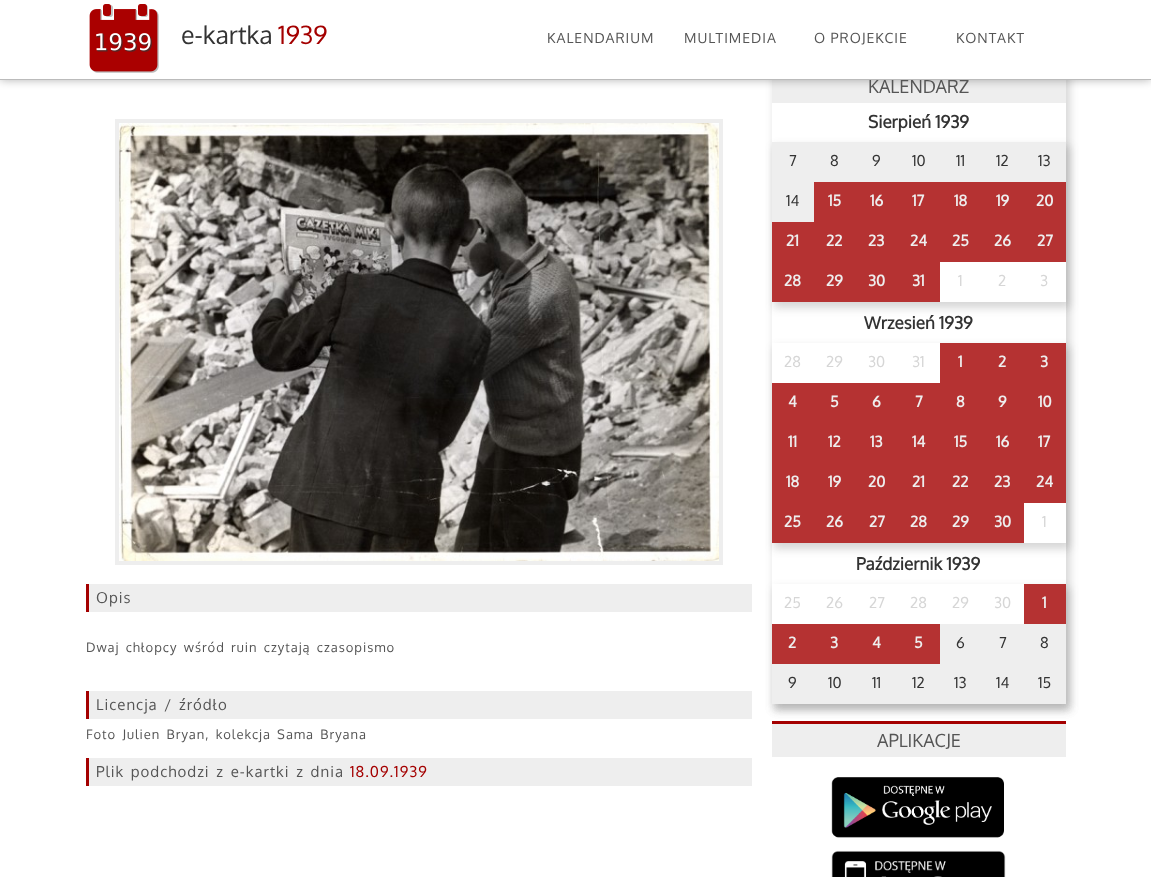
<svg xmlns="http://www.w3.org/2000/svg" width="1151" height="877">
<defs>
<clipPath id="clip1"><path d="M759 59h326v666h-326zm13 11h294v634h-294z" clip-rule="evenodd"/></clipPath>
<clipPath id="clip2"><path d="M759 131h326v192h-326zm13 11h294v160h-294z" clip-rule="evenodd"/></clipPath>
<clipPath id="clip3"><path d="M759 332h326v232h-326zm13 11h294v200h-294z" clip-rule="evenodd"/></clipPath>
<clipPath id="clip4"><path d="M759 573h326v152h-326zm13 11h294v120h-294z" clip-rule="evenodd"/></clipPath>
</defs>
<rect width="100%" height="100%" fill="#fff"/>
<g clip-path="url(#clip1)">
<rect x="774" y="74" width="296" height="636" fill="#33333333" filter="blur(4.5px)"/>
</g>
<rect x="772" y="80" width="294" height="23" fill="#eee"/>
<rect width="1151" height="80" fill="#0000004d" filter="blur(5px)"/>
<rect width="1151" height="79" fill="#fff"/>
<text x="868" y="93" style="font-family:Oxygen;font-size:18px;fill:#555">KALENDARZ</text>
<rect y="79" width="1151" height="1" fill="#bbb"/>
<image x="89" y="4" width="70" height="69" href="media/1.png"/>
<text x="181" y="44" style="font-family:Oxygen;font-size:25px;fill:#333">e-kartka</text>
<text x="278" y="44" style="font-family:Oxygen;font-size:25px;fill:#a40000">1939</text>
<text x="547" y="43" style="font-family:Oxygen;font-size:14px;letter-spacing:1px;fill:#555">KALENDARIUM</text>
<text x="684" y="43" style="font-family:Oxygen;font-size:14px;letter-spacing:1px;fill:#555">MULTIMEDIA</text>
<text x="814" y="43" style="font-family:Oxygen;font-size:14px;letter-spacing:1px;fill:#555">O PROJEKCIE</text>
<text x="956" y="43" style="font-family:Oxygen;font-size:14px;letter-spacing:1px;fill:#555">KONTAKT</text>
<rect x="115" y="119" width="608" height="446" fill="#eee"/>
<image x="119" y="123" width="600" height="438" href="media/2.png"/>
<rect x="89" y="584" width="663" height="28" fill="#eee"/>
<rect x="86" y="584" width="3" height="28" fill="#a40000"/>
<text x="96" y="603" style="font-family:Oxygen;font-size:15px;letter-spacing:1px;fill:#555">Opis</text>
<text x="86" y="652" word-spacing="2" style="font-family:Oxygen;font-size:13px;letter-spacing:1px;fill:#555">Dwaj chłopcy wśród ruin czytają czasopismo</text>
<rect x="89" y="691" width="663" height="28" fill="#eee"/>
<rect x="86" y="691" width="3" height="28" fill="#a40000"/>
<text x="96" y="710" word-spacing="2" style="font-family:Oxygen;font-size:15px;letter-spacing:1px;fill:#555">Licencja / źródło</text>
<text x="86" y="739" word-spacing="2" style="font-family:Oxygen;font-size:13px;letter-spacing:1px;fill:#555">Foto Julien Bryan, kolekcja Sama Bryana</text>
<rect x="89" y="758" width="663" height="28" fill="#eee"/>
<rect x="86" y="758" width="3" height="28" fill="#a40000"/>
<text x="96" y="777" word-spacing="2" style="font-family:Oxygen;font-size:15px;letter-spacing:1px;fill:#555">Plik podchodzi z e-kartki z dnia</text>
<text x="350" y="777" style="font-family:Oxygen;font-size:15px;letter-spacing:1px;fill:#a40000">18.09.1939</text>
<g clip-path="url(#clip2)">
<rect x="774" y="146" width="296" height="162" fill="#33333333" filter="blur(4.5px)"/>
</g>
<text x="868" y="128" style="font-family:Oxygen;font-size:17px;font-weight:bold;fill:#333">Sierpień 1939</text>
<rect x="772" y="142" width="294" height="40" fill="#eee"/>
<text x="789" y="166" style="font-family:Oxygen;font-size:15px;fill:#333">7</text>
<text x="830" y="166" style="font-family:Oxygen;font-size:15px;fill:#333">8</text>
<text x="872" y="166" style="font-family:Oxygen;font-size:15px;fill:#333">9</text>
<text x="912" y="166" style="font-family:Oxygen;font-size:15px;fill:#333">10</text>
<text x="956" y="166" style="font-family:Oxygen;font-size:15px;fill:#333">11</text>
<text x="996" y="166" style="font-family:Oxygen;font-size:15px;fill:#333">12</text>
<text x="1038" y="166" style="font-family:Oxygen;font-size:15px;fill:#333">13</text>
<rect x="772" y="182" width="42" height="40" fill="#eee"/>
<text x="786" y="206" style="font-family:Oxygen;font-size:15px;fill:#333">14</text>
<rect x="814" y="182" width="252" height="40" fill="#b53232"/>
<text x="828" y="206" style="font-family:Oxygen;font-size:15px;font-weight:bold;fill:#eee">15</text>
<text x="870" y="206" style="font-family:Oxygen;font-size:15px;font-weight:bold;fill:#eee">16</text>
<text x="912" y="206" style="font-family:Oxygen;font-size:15px;font-weight:bold;fill:#eee">17</text>
<text x="954" y="206" style="font-family:Oxygen;font-size:15px;font-weight:bold;fill:#eee">18</text>
<text x="996" y="206" style="font-family:Oxygen;font-size:15px;font-weight:bold;fill:#eee">19</text>
<text x="1036" y="206" style="font-family:Oxygen;font-size:15px;font-weight:bold;fill:#eee">20</text>
<rect x="772" y="222" width="294" height="40" fill="#b53232"/>
<text x="786" y="246" style="font-family:Oxygen;font-size:15px;font-weight:bold;fill:#eee">21</text>
<text x="826" y="246" style="font-family:Oxygen;font-size:15px;font-weight:bold;fill:#eee">22</text>
<text x="868" y="246" style="font-family:Oxygen;font-size:15px;font-weight:bold;fill:#eee">23</text>
<text x="910" y="246" style="font-family:Oxygen;font-size:15px;font-weight:bold;fill:#eee">24</text>
<text x="952" y="246" style="font-family:Oxygen;font-size:15px;font-weight:bold;fill:#eee">25</text>
<text x="994" y="246" style="font-family:Oxygen;font-size:15px;font-weight:bold;fill:#eee">26</text>
<text x="1037" y="246" style="font-family:Oxygen;font-size:15px;font-weight:bold;fill:#eee">27</text>
<rect x="772" y="262" width="168" height="40" fill="#b53232"/>
<text x="784" y="286" style="font-family:Oxygen;font-size:15px;font-weight:bold;fill:#eee">28</text>
<text x="826" y="286" style="font-family:Oxygen;font-size:15px;font-weight:bold;fill:#eee">29</text>
<text x="868" y="286" style="font-family:Oxygen;font-size:15px;font-weight:bold;fill:#eee">30</text>
<text x="912" y="286" style="font-family:Oxygen;font-size:15px;font-weight:bold;fill:#eee">31</text>
<text x="958" y="286" style="font-family:Oxygen;font-size:15px;fill:#d6d6d6">1</text>
<text x="998" y="286" style="font-family:Oxygen;font-size:15px;fill:#d6d6d6">2</text>
<text x="1040" y="286" style="font-family:Oxygen;font-size:15px;fill:#d6d6d6">3</text>
<text x="864" y="329" style="font-family:Oxygen;font-size:17px;font-weight:bold;fill:#333">Wrzesień 1939</text>
<g clip-path="url(#clip3)">
<rect x="774" y="347" width="296" height="202" fill="#33333333" filter="blur(4.5px)"/>
</g>
<text x="784" y="367" style="font-family:Oxygen;font-size:15px;fill:#d6d6d6">28</text>
<text x="826" y="367" style="font-family:Oxygen;font-size:15px;fill:#d6d6d6">29</text>
<text x="868" y="367" style="font-family:Oxygen;font-size:15px;fill:#d6d6d6">30</text>
<text x="912" y="367" style="font-family:Oxygen;font-size:15px;fill:#d6d6d6">31</text>
<rect x="940" y="343" width="126" height="40" fill="#b53232"/>
<text x="958" y="367" style="font-family:Oxygen;font-size:15px;font-weight:bold;fill:#eee">1</text>
<text x="998" y="367" style="font-family:Oxygen;font-size:15px;font-weight:bold;fill:#eee">2</text>
<text x="1040" y="367" style="font-family:Oxygen;font-size:15px;font-weight:bold;fill:#eee">3</text>
<rect x="772" y="383" width="294" height="40" fill="#b53232"/>
<text x="788" y="407" style="font-family:Oxygen;font-size:15px;font-weight:bold;fill:#eee">4</text>
<text x="830" y="407" style="font-family:Oxygen;font-size:15px;font-weight:bold;fill:#eee">5</text>
<text x="872" y="407" style="font-family:Oxygen;font-size:15px;font-weight:bold;fill:#eee">6</text>
<text x="915" y="407" style="font-family:Oxygen;font-size:15px;font-weight:bold;fill:#eee">7</text>
<text x="956" y="407" style="font-family:Oxygen;font-size:15px;font-weight:bold;fill:#eee">8</text>
<text x="998" y="407" style="font-family:Oxygen;font-size:15px;font-weight:bold;fill:#eee">9</text>
<text x="1038" y="407" style="font-family:Oxygen;font-size:15px;font-weight:bold;fill:#eee">10</text>
<rect x="772" y="423" width="294" height="40" fill="#b53232"/>
<text x="788" y="447" style="font-family:Oxygen;font-size:15px;font-weight:bold;fill:#eee">11</text>
<text x="828" y="447" style="font-family:Oxygen;font-size:15px;font-weight:bold;fill:#eee">12</text>
<text x="870" y="447" style="font-family:Oxygen;font-size:15px;font-weight:bold;fill:#eee">13</text>
<text x="912" y="447" style="font-family:Oxygen;font-size:15px;font-weight:bold;fill:#eee">14</text>
<text x="954" y="447" style="font-family:Oxygen;font-size:15px;font-weight:bold;fill:#eee">15</text>
<text x="996" y="447" style="font-family:Oxygen;font-size:15px;font-weight:bold;fill:#eee">16</text>
<text x="1038" y="447" style="font-family:Oxygen;font-size:15px;font-weight:bold;fill:#eee">17</text>
<rect x="772" y="463" width="294" height="40" fill="#b53232"/>
<text x="786" y="487" style="font-family:Oxygen;font-size:15px;font-weight:bold;fill:#eee">18</text>
<text x="828" y="487" style="font-family:Oxygen;font-size:15px;font-weight:bold;fill:#eee">19</text>
<text x="868" y="487" style="font-family:Oxygen;font-size:15px;font-weight:bold;fill:#eee">20</text>
<text x="912" y="487" style="font-family:Oxygen;font-size:15px;font-weight:bold;fill:#eee">21</text>
<text x="952" y="487" style="font-family:Oxygen;font-size:15px;font-weight:bold;fill:#eee">22</text>
<text x="994" y="487" style="font-family:Oxygen;font-size:15px;font-weight:bold;fill:#eee">23</text>
<text x="1036" y="487" style="font-family:Oxygen;font-size:15px;font-weight:bold;fill:#eee">24</text>
<rect x="772" y="503" width="252" height="40" fill="#b53232"/>
<text x="784" y="527" style="font-family:Oxygen;font-size:15px;font-weight:bold;fill:#eee">25</text>
<text x="826" y="527" style="font-family:Oxygen;font-size:15px;font-weight:bold;fill:#eee">26</text>
<text x="869" y="527" style="font-family:Oxygen;font-size:15px;font-weight:bold;fill:#eee">27</text>
<text x="910" y="527" style="font-family:Oxygen;font-size:15px;font-weight:bold;fill:#eee">28</text>
<text x="952" y="527" style="font-family:Oxygen;font-size:15px;font-weight:bold;fill:#eee">29</text>
<text x="994" y="527" style="font-family:Oxygen;font-size:15px;font-weight:bold;fill:#eee">30</text>
<text x="1042" y="527" style="font-family:Oxygen;font-size:15px;fill:#d6d6d6">1</text>
<text x="856" y="570" style="font-family:Oxygen;font-size:17px;font-weight:bold;fill:#333">Październik 1939</text>
<g clip-path="url(#clip4)">
<rect x="774" y="588" width="296" height="122" fill="#33333333" filter="blur(4.5px)"/>
</g>
<text x="784" y="608" style="font-family:Oxygen;font-size:15px;fill:#d6d6d6">25</text>
<text x="826" y="608" style="font-family:Oxygen;font-size:15px;fill:#d6d6d6">26</text>
<text x="869" y="608" style="font-family:Oxygen;font-size:15px;fill:#d6d6d6">27</text>
<text x="910" y="608" style="font-family:Oxygen;font-size:15px;fill:#d6d6d6">28</text>
<text x="952" y="608" style="font-family:Oxygen;font-size:15px;fill:#d6d6d6">29</text>
<text x="994" y="608" style="font-family:Oxygen;font-size:15px;fill:#d6d6d6">30</text>
<rect x="1024" y="584" width="42" height="40" fill="#b53232"/>
<text x="1042" y="608" style="font-family:Oxygen;font-size:15px;font-weight:bold;fill:#eee">1</text>
<rect x="772" y="624" width="168" height="40" fill="#b53232"/>
<text x="788" y="648" style="font-family:Oxygen;font-size:15px;font-weight:bold;fill:#eee">2</text>
<text x="830" y="648" style="font-family:Oxygen;font-size:15px;font-weight:bold;fill:#eee">3</text>
<text x="872" y="648" style="font-family:Oxygen;font-size:15px;font-weight:bold;fill:#eee">4</text>
<text x="914" y="648" style="font-family:Oxygen;font-size:15px;font-weight:bold;fill:#eee">5</text>
<rect x="940" y="624" width="126" height="40" fill="#eee"/>
<text x="956" y="648" style="font-family:Oxygen;font-size:15px;fill:#333">6</text>
<text x="999" y="648" style="font-family:Oxygen;font-size:15px;fill:#333">7</text>
<text x="1040" y="648" style="font-family:Oxygen;font-size:15px;fill:#333">8</text>
<rect x="772" y="664" width="294" height="40" fill="#eee"/>
<text x="788" y="688" style="font-family:Oxygen;font-size:15px;fill:#333">9</text>
<text x="828" y="688" style="font-family:Oxygen;font-size:15px;fill:#333">10</text>
<text x="872" y="688" style="font-family:Oxygen;font-size:15px;fill:#333">11</text>
<text x="912" y="688" style="font-family:Oxygen;font-size:15px;fill:#333">12</text>
<text x="954" y="688" style="font-family:Oxygen;font-size:15px;fill:#333">13</text>
<text x="996" y="688" style="font-family:Oxygen;font-size:15px;fill:#333">14</text>
<text x="1038" y="688" style="font-family:Oxygen;font-size:15px;fill:#333">15</text>
<rect x="772" y="721" width="294" height="3" fill="#a40000"/>
<rect x="772" y="724" width="294" height="33" fill="#eee"/>
<text x="877" y="747" style="font-family:Oxygen;font-size:18px;fill:#555">APLIKACJE</text>
<image x="831" y="777" width="173" height="61" href="media/3.png"/>
<image x="831" y="850" width="175" height="27" href="media/4.png"/>
</svg>
